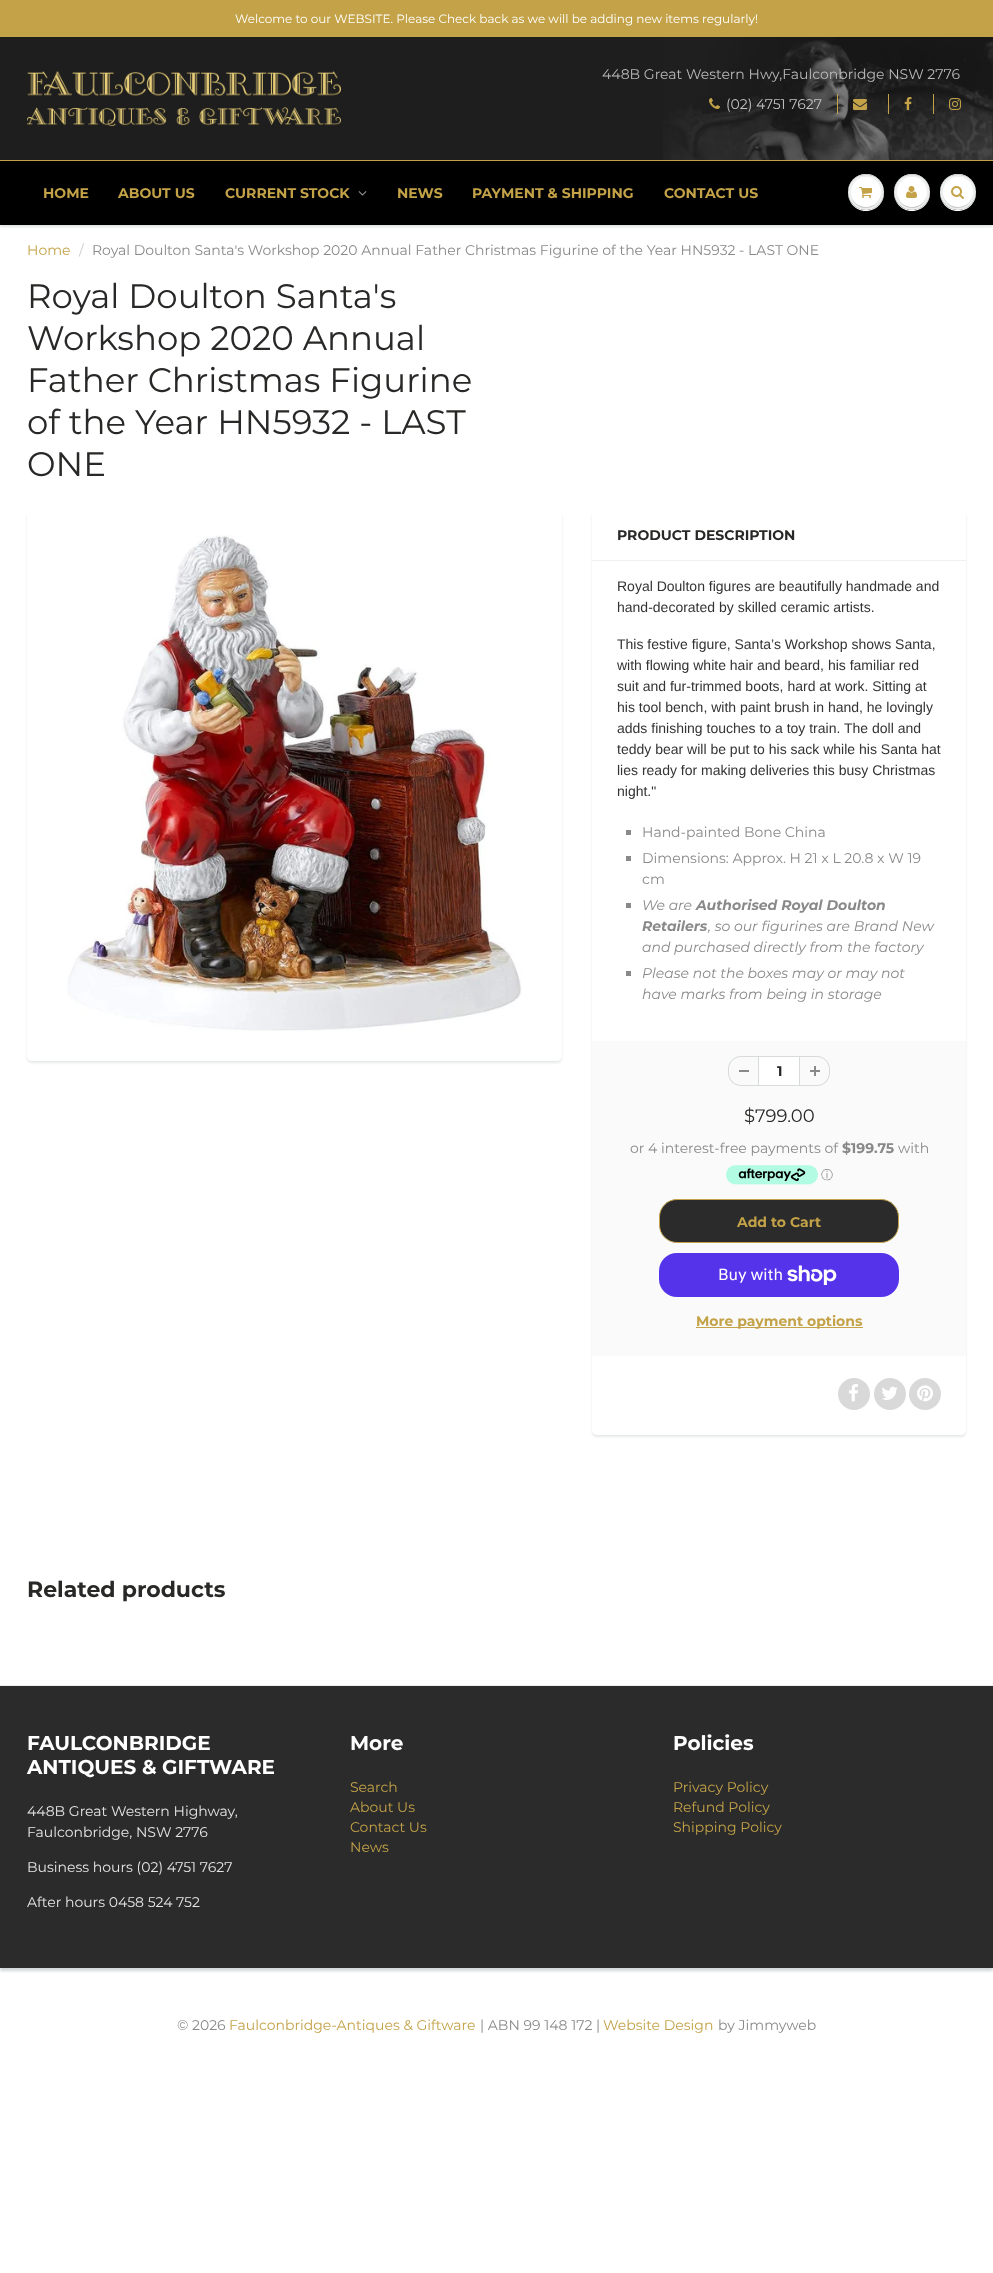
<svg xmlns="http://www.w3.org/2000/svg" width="993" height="2273">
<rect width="100%" height="100%" fill="#fff"/>
<rect width="993" height="37" fill="#c3a248"/>
<text x="235" y="23" style="font-family:Montserrat;font-size:12px;fill:#fff">Welcome to our WEBSITE. Please Check back as we will be adding new items regularly!</text>
<rect y="37" width="663" height="123" fill="#1e1e1e"/>
<image x="663" y="37" width="330" height="123" href="media/1.png"/>
<image x="27" y="71" width="314" height="55" href="media/2.png"/>
<text x="602" y="79" style="font-family:Montserrat;font-size:14px;fill:#b9b9b9">448B Great Western Hwy,Faulconbridge NSW 2776</text>
<image x="709" y="98" width="11" height="11" href="media/3.png"/>
<text x="726" y="109" style="font-family:Montserrat;font-size:14px;fill:#c2c2c2">(02) 4751 7627</text>
<rect x="837" y="94" width="1" height="20" fill="#c3a248"/>
<image x="853" y="99" width="14" height="11" href="media/4.png"/>
<rect x="888" y="94" width="1" height="20" fill="#c3a248"/>
<image x="904" y="97" width="8" height="13" href="media/5.png"/>
<rect x="933" y="94" width="1" height="20" fill="#c3a248"/>
<image x="949" y="98" width="12" height="12" href="media/6.png"/>
<rect y="162" width="993" height="65" fill="#0b191c1f" filter="blur(1px)"/>
<rect y="161" width="993" height="64" fill="#000"/>
<rect y="160" width="993" height="1" fill="#c3a248"/>
<text x="43" y="198" style="font-family:Montserrat;font-size:14px;font-weight:bold;fill:#c3a248">HOME</text>
<text x="118" y="198" style="font-family:Montserrat;font-size:14px;font-weight:bold;fill:#c3a248">ABOUT US</text>
<text x="225" y="198" style="font-family:Montserrat;font-size:14px;font-weight:bold;fill:#c3a248">CURRENT STOCK</text>
<image x="358" y="191" width="9" height="5" href="media/7.png"/>
<text x="397" y="198" style="font-family:Montserrat;font-size:14px;font-weight:bold;fill:#c3a248">NEWS</text>
<text x="472" y="198" style="font-family:Montserrat;font-size:14px;font-weight:bold;fill:#c3a248">PAYMENT &amp; SHIPPING</text>
<text x="664" y="198" style="font-family:Montserrat;font-size:14px;font-weight:bold;fill:#c3a248">CONTACT US</text>
<path d="M848 192.5c0 3.5 1 7.5 3 10.5c10 15 33.5 7.5 33-10.5c-.5 9.5-8 17.5-18 17.5c-10 0-17.5-8-18-17.5z" fill="#fff"/>
<circle cx="866" cy="192" r="18" fill="#edefef"/>
<path d="M866 175c12 0 18 8.5 18 17.5c0-3.5-1-7.5-3-10.5c-10-15-33.5-7.5-33 10.5c0-9 6-17.5 18-17.5z" fill="#c9cbcb"/>
<path d="M881 192.5c-.5 19-29.5 19-30 0c0 3 1 6.5 2.5 9c8.5 12.5 28 6 27.5-9z" fill="#c9cbcb"/>
<circle cx="866" cy="192" r="15" fill="#fff"/>
<path d="M866 178c10 0 15 7 15 14.5c0-3-1-6.5-2.5-9c-8.5-12.5-28-6-27.5 9c0-7.5 5-14.5 15-14.5z" fill="#fff"/>
<image x="859" y="187" width="13" height="11" href="media/8.png"/>
<path d="M894 192.5c0 3.5 1 7.5 3 10.5c10 15 33.5 7.5 33-10.5c-.5 9.5-8 17.5-18 17.5c-10 0-17.5-8-18-17.5z" fill="#fff"/>
<circle cx="912" cy="192" r="18" fill="#edefef"/>
<path d="M912 175c12 0 18 8.5 18 17.5c0-3.5-1-7.5-3-10.5c-10-15-33.5-7.5-33 10.5c0-9 6-17.5 18-17.5z" fill="#c9cbcb"/>
<path d="M927 192.5c-.5 19-29.5 19-30 0c-.5 15 19 21.5 27.5 9c1.5-2.5 2.5-6 2.5-9z" fill="#c9cbcb"/>
<circle cx="912" cy="192" r="15" fill="#fff"/>
<path d="M912 178c10 0 15 7 15 14.5c0-3-1-6.5-2.5-9c-8.5-12.5-28-6-27.5 9c0-7.5 5-14.5 15-14.5z" fill="#fff"/>
<image x="906" y="186" width="11" height="12" href="media/9.png"/>
<path d="M940 192.5c0 3.5 1 7.5 3 10.5c10 15 33.5 7.5 33-10.5c-.5 9.5-8 17.5-18 17.5c-10 0-17.5-8-18-17.5z" fill="#fff"/>
<circle cx="958" cy="192" r="18" fill="#edefef"/>
<path d="M958 175c12 0 18 8.5 18 17.5c0-3.5-1-7.5-3-10.5c-10-15-33.5-7.5-33 10.5c0-9 6-17.5 18-17.5z" fill="#c9cbcb"/>
<path d="M973 192.5c-.5 19-29.5 19-30 0c0 3 1 6.5 2.5 9c8.5 12.5 28 6 27.5-9z" fill="#c9cbcb"/>
<circle cx="958" cy="192" r="15" fill="#fff"/>
<path d="M958 178c10 0 15 7 15 14.5c0-3-1-6.5-2.5-9c-8.5-12.5-28-6-27.5 9c0-7.5 5-14.5 15-14.5z" fill="#fff"/>
<image x="951" y="186" width="13" height="13" href="media/10.png"/>
<text x="27" y="255" style="font-family:Montserrat;font-size:14px;fill:#c3a248">Home</text>
<text x="79" y="255" style="font-family:Montserrat;font-size:14px;fill:#ccc">/</text>
<text x="92" y="255" style="font-family:Montserrat;font-size:14px;fill:#898989">Royal Doulton Santa's Workshop 2020 Annual Father Christmas Figurine of the Year HN5932 - LAST ONE</text>
<text x="27" y="308" style="font-family:Montserrat;font-size:34px;fill:#282827">Royal Doulton Santa's</text>
<text x="27" y="350" style="font-family:Montserrat;font-size:34px;fill:#282827">Workshop 2020 Annual</text>
<text x="27" y="392" style="font-family:Montserrat;font-size:34px;fill:#282827">Father Christmas Figurine</text>
<text x="27" y="434" style="font-family:Montserrat;font-size:34px;fill:#282827">of the Year HN5932 - LAST</text>
<text x="27" y="476" style="font-family:Montserrat;font-size:34px;fill:#282827">ONE</text>
<rect x="27" y="512" width="535" height="551" rx="5" fill="#0b191c1a" filter="blur(1px)"/>
<rect x="27" y="510" width="535" height="551" rx="5" fill="#fff"/>
<image x="67" y="535" width="455" height="496" href="media/11.png"/>
<rect x="592" y="512" width="374" height="925" rx="5" fill="#0b191c1a" filter="blur(1px)"/>
<rect x="592" y="510" width="374" height="925" rx="5" fill="#fff"/>
<rect x="592" y="560" width="374" height="1" fill="#efefef"/>
<text x="617" y="540" style="font-family:Montserrat;font-size:14px;font-weight:bold;fill:#282827">PRODUCT DESCRIPTION</text>
<text x="617" y="591" style="font-family:Liberation Sans;font-size:14px;fill:#333">Royal Doulton figures are beautifully handmade and</text>
<text x="617" y="612" style="font-family:Liberation Sans;font-size:14px;fill:#333">hand-decorated by skilled ceramic artists.</text>
<text x="617" y="649" style="font-family:Liberation Sans;font-size:14px;fill:#333">This festive figure, Santa’s Workshop shows Santa,</text>
<text x="617" y="670" style="font-family:Liberation Sans;font-size:14px;fill:#333">with flowing white hair and beard, his familiar red</text>
<text x="617" y="691" style="font-family:Liberation Sans;font-size:14px;fill:#333">suit and fur-trimmed boots, hard at work. Sitting at</text>
<text x="617" y="712" style="font-family:Liberation Sans;font-size:14px;fill:#333">his tool bench, with paint brush in hand, he lovingly</text>
<text x="617" y="733" style="font-family:Liberation Sans;font-size:14px;fill:#333">adds finishing touches to a toy train. The doll and</text>
<text x="617" y="754" style="font-family:Liberation Sans;font-size:14px;fill:#333">teddy bear will be put to his sack while his Santa hat</text>
<text x="617" y="775" style="font-family:Liberation Sans;font-size:14px;fill:#333">lies ready for making deliveries this busy Christmas</text>
<text x="617" y="796" style="font-family:Liberation Sans;font-size:14px;fill:#333">night."</text>
<rect x="626" y="830" width="5" height="5" fill="#898989"/>
<text x="642" y="837" style="font-family:Montserrat;font-size:14px;fill:#898989">Hand-painted Bone China</text>
<rect x="626" y="856" width="5" height="5" fill="#898989"/>
<text x="642" y="863" style="font-family:Montserrat;font-size:14px;fill:#898989">Dimensions: Approx. H 21 x L 20.8 x W 19</text>
<text x="642" y="884" style="font-family:Montserrat;font-size:14px;fill:#898989">cm</text>
<rect x="626" y="903" width="5" height="5" fill="#898989"/>
<text x="642" y="910" style="font-family:Montserrat;font-size:14px;font-style:italic;fill:#898989">We are</text>
<text x="696" y="910" style="font-family:Montserrat;font-size:14px;font-weight:bold;font-style:italic;fill:#898989">Authorised Royal Doulton</text>
<text x="642" y="931" style="font-family:Montserrat;font-size:14px;font-weight:bold;font-style:italic;fill:#898989">Retailers</text>
<text x="708" y="931" style="font-family:Montserrat;font-size:14px;font-style:italic;fill:#898989">, so our figurines are Brand New</text>
<text x="642" y="952" style="font-family:Montserrat;font-size:14px;font-style:italic;fill:#898989">and purchased directly from the factory</text>
<rect x="626" y="971" width="5" height="5" fill="#898989"/>
<text x="642" y="978" style="font-family:Montserrat;font-size:14px;font-style:italic;fill:#898989">Please not the boxes may or may not</text>
<text x="642" y="999" style="font-family:Montserrat;font-size:14px;font-style:italic;fill:#898989">have marks from being in storage</text>
<rect x="592" y="1041" width="374" height="315" fill="#fafafa"/>
<rect x="739" y="1070" width="10" height="2" fill="#898989"/>
<path d="M741 1056h17v30h-17c-7 0-13-6-13-13v-4c0-7 6-13 13-13zm0 1h17v28h-17c-6.5 0-12-5.5-12-12v-4c0-6.5 5.5-12 12-12z" fill="#d7dbdb" fill-rule="evenodd"/>
<rect x="758.5" y="1056.5" width="41" height="29" fill="#fff" stroke="#d7dbdb"/>
<text x="777" y="1076" style="font-family:Montserrat;font-size:14px;font-weight:bold;fill:#282827">1</text>
<image x="810" y="1066" width="10" height="10" href="media/12.png"/>
<path d="M800 1056h17c7 0 13 6 13 13v4c0 7-6 13-13 13h-17zm0 1h17c6.5 0 12 5.5 12 12v4c0 6.5-5.5 12-12 12h-17z" fill="#d7dbdb" fill-rule="evenodd"/>
<text x="744" y="1122" style="font-family:Montserrat;font-size:18px;fill:#282827">$799.00</text>
<text x="630" y="1153" style="font-family:Montserrat;font-size:14px;fill:#898989">or 4 interest-free payments of</text>
<text x="842" y="1153" style="font-family:Montserrat;font-size:14px;font-weight:bold;fill:#898989">$199.75</text>
<text x="898" y="1153" style="font-family:Montserrat;font-size:14px;fill:#898989">with</text>
<image x="726" y="1165" width="92" height="20" href="media/13.png"/>
<text x="821" y="1179" style="font-family:WenQuanYi Zen Hei;font-size:12px;font-weight:500;fill:#898989">ⓘ</text>
<rect x="659.5" y="1199.5" width="239" height="43" rx="17.5" fill="#2b2b2b" stroke="#c3a248"/>
<text x="737" y="1227" style="font-family:Montserrat;font-size:14px;font-weight:bold;fill:#c3a248">Add to Cart</text>
<rect x="659" y="1253" width="240" height="44" rx="18" fill="#5433eb"/>
<text x="718" y="1280" style="font-family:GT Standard;font-size:16px;fill:#fff">Buy with</text>
<image x="787" y="1265" width="50" height="20" href="media/14.png"/>
<rect x="696" y="1327" width="167" height="1" fill="#c3a248"/>
<text x="696" y="1326" style="font-family:Montserrat;font-size:14px;font-weight:bold;fill:#c3a248">More payment options</text>
<circle cx="854" cy="1394" r="16" fill="#d9d9d9"/>
<image x="849" y="1384" width="9" height="18" href="media/15.png"/>
<circle cx="890" cy="1394" r="16" fill="#d9d9d9"/>
<image x="882" y="1386" width="16" height="14" href="media/16.png"/>
<circle cx="925" cy="1394" r="16" fill="#d9d9d9"/>
<image x="917" y="1385" width="16" height="17" href="media/17.png"/>
<text x="27" y="1597" style="font-family:Montserrat;font-size:22px;font-weight:bold;fill:#282827">Related products</text>
<rect y="1688" width="993" height="283" fill="#d1d7d7" filter="blur(1.5px)"/>
<rect y="1686" width="993" height="282" fill="#2b2b2b"/>
<rect y="1685" width="993" height="1" fill="#ecefef"/>
<text x="27" y="1750" style="font-family:Montserrat;font-size:20px;font-weight:bold;fill:#fff">FAULCONBRIDGE</text>
<text x="27" y="1774" style="font-family:Montserrat;font-size:20px;font-weight:bold;fill:#fff">ANTIQUES &amp; GIFTWARE</text>
<text x="27" y="1816" style="font-family:Montserrat;font-size:14px;fill:#e6e6e6">448B Great Western Highway,</text>
<text x="27" y="1837" style="font-family:Montserrat;font-size:14px;fill:#e6e6e6">Faulconbridge, NSW 2776</text>
<text x="27" y="1872" style="font-family:Montserrat;font-size:14px;fill:#e6e6e6">Business hours (02) 4751 7627</text>
<text x="27" y="1907" style="font-family:Montserrat;font-size:14px;fill:#e6e6e6">After hours 0458 524 752</text>
<text x="350" y="1750" style="font-family:Montserrat;font-size:20px;font-weight:bold;fill:#fff">More</text>
<text x="350" y="1792" style="font-family:Montserrat;font-size:14px;fill:#c3a248">Search</text>
<text x="350" y="1812" style="font-family:Montserrat;font-size:14px;fill:#c3a248">About Us</text>
<text x="350" y="1832" style="font-family:Montserrat;font-size:14px;fill:#c3a248">Contact Us</text>
<text x="350" y="1852" style="font-family:Montserrat;font-size:14px;fill:#c3a248">News</text>
<text x="673" y="1750" style="font-family:Montserrat;font-size:20px;font-weight:bold;fill:#fff">Policies</text>
<text x="673" y="1792" style="font-family:Montserrat;font-size:14px;fill:#c3a248">Privacy Policy</text>
<text x="673" y="1812" style="font-family:Montserrat;font-size:14px;fill:#c3a248">Refund Policy</text>
<text x="673" y="1832" style="font-family:Montserrat;font-size:14px;fill:#c3a248">Shipping Policy</text>
<text x="177" y="2030" style="font-family:Montserrat;font-size:14px;fill:#898989">© 2026</text>
<text x="229" y="2030" style="font-family:Montserrat;font-size:14px;fill:#c3a248">Faulconbridge-Antiques &amp; Giftware</text>
<text x="480" y="2030" style="font-family:Montserrat;font-size:14px;fill:#898989">| ABN 99 148 172 |</text>
<text x="603" y="2030" style="font-family:Montserrat;font-size:14px;fill:#c3a248">Website Design</text>
<text x="718" y="2030" style="font-family:Montserrat;font-size:14px;fill:#898989">by Jimmyweb</text>
</svg>
